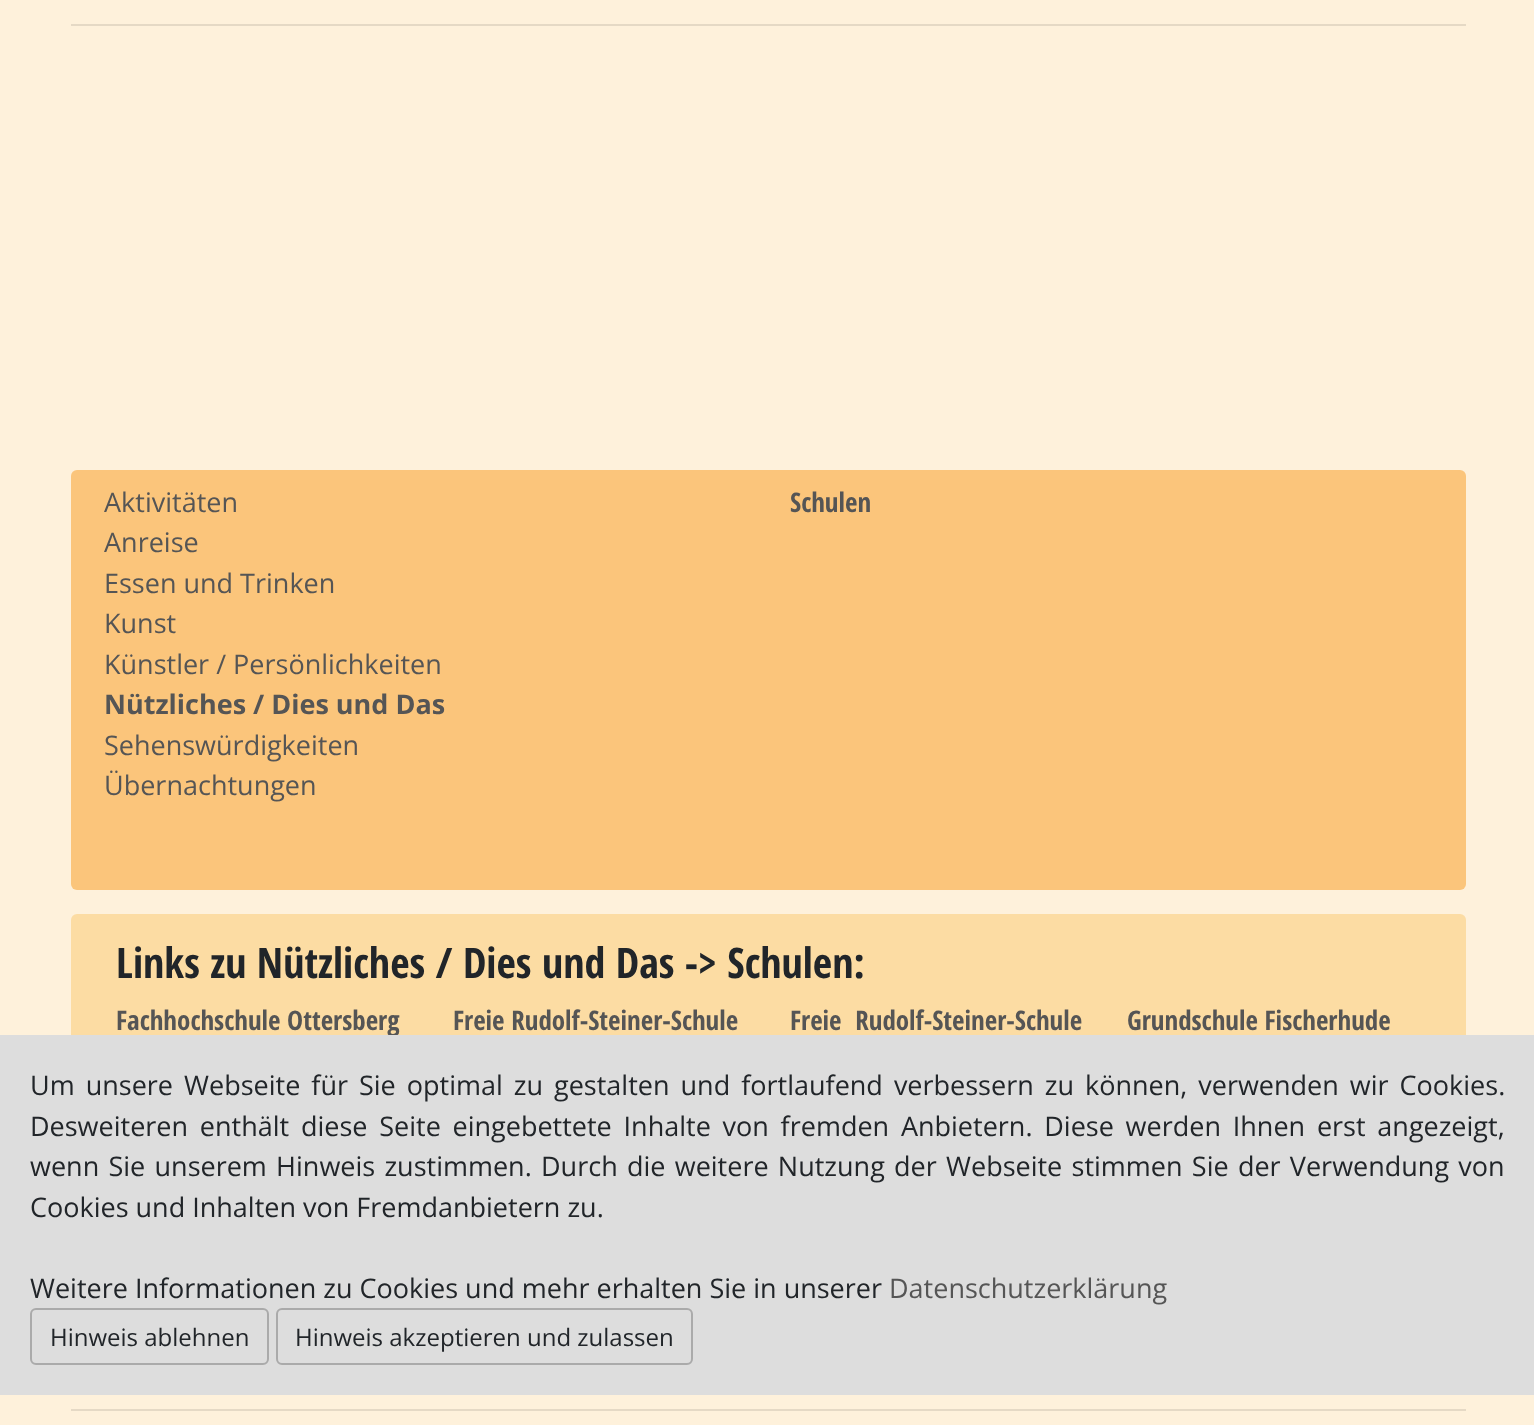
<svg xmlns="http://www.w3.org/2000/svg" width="1534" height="1425">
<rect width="100%" height="100%" fill="#fef1db"/>
<rect x="71" y="24" width="1395" height="2" fill="#e5d9c5"/>
<rect x="71" y="470" width="1395" height="420" rx="6" fill="#fbc57b"/>
<text x="104" y="512" style="font-family:Open Sans;font-size:27px;fill:#555">Aktivitäten</text>
<text x="104" y="552" style="font-family:Open Sans;font-size:27px;fill:#555">Anreise</text>
<text x="104" y="593" style="font-family:Open Sans;font-size:27px;fill:#555">Essen und Trinken</text>
<text x="104" y="633" style="font-family:Open Sans;font-size:27px;fill:#555">Kunst</text>
<text x="104" y="674" style="font-family:Open Sans;font-size:27px;fill:#555">Künstler / Persönlichkeiten</text>
<text x="104" y="714" style="font-family:Open Sans;font-size:27px;font-weight:bold;fill:#555">Nützliches / Dies und Das</text>
<text x="104" y="755" style="font-family:Open Sans;font-size:27px;fill:#555">Sehenswürdigkeiten</text>
<text x="104" y="795" style="font-family:Open Sans;font-size:27px;fill:#555">Übernachtungen</text>
<text x="790" y="512" style="font-family:Open Sans Condensed;font-size:27px;font-weight:bold;fill:#555">Schulen</text>
<rect x="71" y="914" width="1395" height="471" rx="6" fill="#fcdca3"/>
<text x="116" y="978" style="font-family:Open Sans Condensed;font-size:42px;font-weight:bold;fill:#212529">Links zu Nützliches / Dies und Das -&gt; Schulen:</text>
<text x="116" y="1030" style="font-family:Open Sans Condensed;font-size:27px;font-weight:bold;fill:#555">Fachhochschule Ottersberg</text>
<text x="453" y="1030" style="font-family:Open Sans Condensed;font-size:27px;font-weight:bold;fill:#555">Freie Rudolf-Steiner-Schule</text>
<text x="790" y="1030" word-spacing="7" style="font-family:Open Sans Condensed;font-size:27px;font-weight:bold;fill:#555">Freie Rudolf-Steiner-Schule</text>
<text x="1127" y="1030" style="font-family:Open Sans Condensed;font-size:27px;font-weight:bold;fill:#555">Grundschule Fischerhude</text>
<rect x="71" y="1409" width="1395" height="2" fill="#e5d9c5"/>
<rect y="1035" width="1534" height="360" fill="#ddd"/>
<text x="30" y="1095" word-spacing="4" style="font-family:Open Sans;font-size:27px;fill:#212529">Um unsere Webseite für Sie optimal zu gestalten und fortlaufend verbessern zu können, verwenden wir Cookies.</text>
<text x="30" y="1136" word-spacing="4.75" style="font-family:Open Sans;font-size:27px;fill:#212529">Desweiteren enthält diese Seite eingebettete Inhalte von fremden Anbietern. Diese werden Ihnen erst angezeigt,</text>
<text x="30" y="1176" word-spacing="2.25" style="font-family:Open Sans;font-size:27px;fill:#212529">wenn Sie unserem Hinweis zustimmen. Durch die weitere Nutzung der Webseite stimmen Sie der Verwendung von</text>
<text x="30" y="1217" style="font-family:Open Sans;font-size:27px;fill:#212529">Cookies und Inhalten von Fremdanbietern zu.</text>
<text x="30" y="1298" style="font-family:Open Sans;font-size:27px;fill:#212529">Weitere Informationen zu Cookies und mehr erhalten Sie in unserer</text>
<text x="889" y="1298" style="font-family:Open Sans;font-size:27px;fill:#555">Datenschutzerklärung</text>
<rect x="31" y="1309" width="237" height="55" rx="5" fill="none" stroke="#aaa" stroke-width="2"/>
<text x="50" y="1346" style="font-family:Open Sans;font-size:24px;fill:#212529">Hinweis ablehnen</text>
<rect x="277" y="1309" width="415" height="55" rx="5" fill="none" stroke="#aaa" stroke-width="2"/>
<text x="295" y="1346" style="font-family:Open Sans;font-size:24px;fill:#212529">Hinweis akzeptieren und zulassen</text>
</svg>
